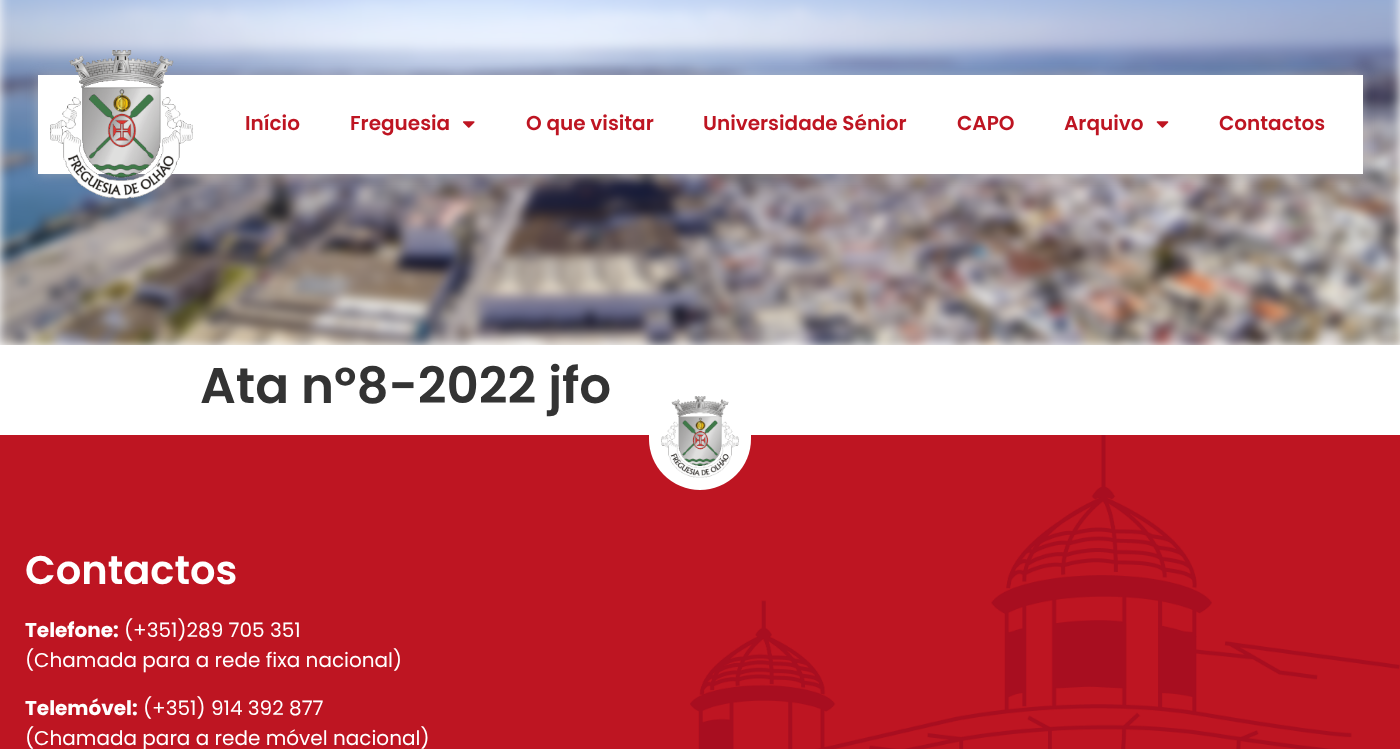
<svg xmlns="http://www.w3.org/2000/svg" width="1400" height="749">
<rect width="100%" height="100%" fill="#fff"/>
<image x="0" y="0" width="1400" height="345" href="media/1.png"/>
<rect x="38" y="75" width="1325" height="99" fill="#c6c6c680" filter="blur(6px)"/>
<rect x="38" y="75" width="1325" height="99" fill="#fff"/>
<image x="50" y="50" width="143" height="149" href="media/2.png"/>
<text x="245" y="130" style="font-family:Poppins;font-size:20px;font-weight:600;fill:#be1522">Início</text>
<text x="350" y="130" style="font-family:Poppins;font-size:20px;font-weight:600;fill:#be1522">Freguesia</text>
<image x="463" y="121" width="12" height="7" href="media/3.png"/>
<text x="526" y="130" style="font-family:Poppins;font-size:20px;font-weight:600;fill:#be1522">O que visitar</text>
<text x="703" y="130" style="font-family:Poppins;font-size:20px;font-weight:600;fill:#be1522">Universidade Sénior</text>
<text x="957" y="130" style="font-family:Poppins;font-size:20px;font-weight:600;fill:#be1522">CAPO</text>
<text x="1064" y="130" style="font-family:Poppins;font-size:20px;font-weight:600;fill:#be1522">Arquivo</text>
<image x="1156" y="121" width="13" height="7" href="media/4.png"/>
<text x="1219" y="130" style="font-family:Poppins;font-size:20px;font-weight:600;fill:#be1522">Contactos</text>
<text x="200" y="403" style="font-family:Poppins;font-size:50px;font-weight:600;fill:#333">Ata nº8-2022 jfo</text>
<rect y="435" width="1400" height="314" fill="#be1522"/>
<image x="690" y="435" width="710" height="314" href="media/6.png"/>
<rect x="649" y="384" width="102" height="106" rx="51" fill="#fff"/>
<image x="661" y="396" width="78" height="82" href="media/5.png"/>
<text x="25" y="584" style="font-family:Poppins;font-size:40px;font-weight:600;fill:#fff">Contactos</text>
<text x="25" y="637" style="font-family:Poppins;font-size:20px;font-weight:bold;fill:#fff">Telefone:</text>
<text x="124" y="637" style="font-family:Poppins;font-size:20px;fill:#fff">(+351)289 705 351</text>
<text x="25" y="667" style="font-family:Poppins;font-size:20px;fill:#fff">(Chamada para a rede fixa nacional)</text>
<text x="25" y="715" style="font-family:Poppins;font-size:20px;font-weight:bold;fill:#fff">Telemóvel:</text>
<text x="143" y="715" style="font-family:Poppins;font-size:20px;fill:#fff">(+351) 914 392 877</text>
<text x="25" y="745" style="font-family:Poppins;font-size:20px;fill:#fff">(Chamada para a rede móvel nacional)</text>
</svg>
